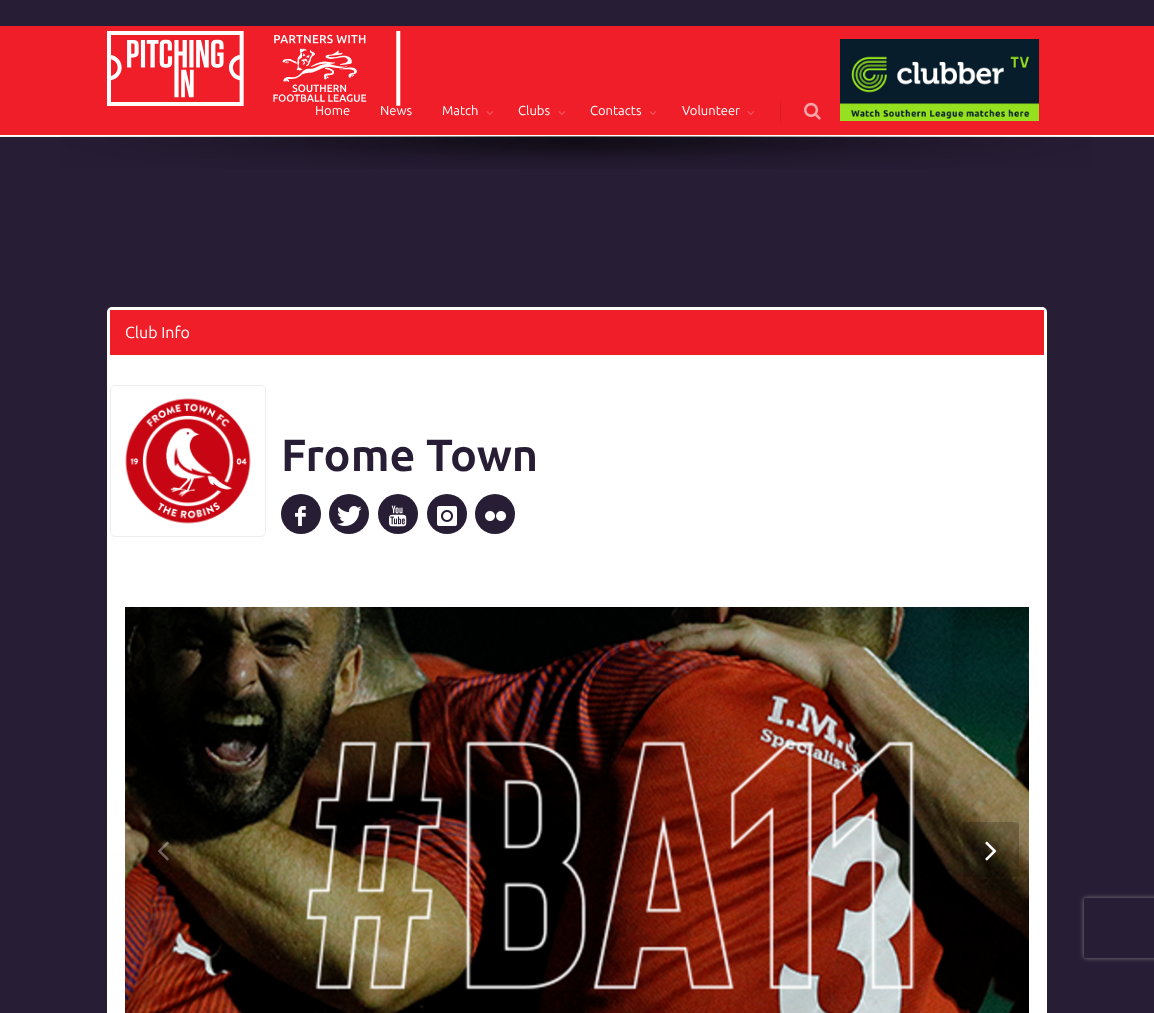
<svg xmlns="http://www.w3.org/2000/svg" width="1154" height="1013">
<defs>
<clipPath id="clip1"><path d="M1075 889h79v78h-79zm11 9h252c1 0 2 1 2 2v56c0 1-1 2-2 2h-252c-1 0-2-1-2-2v-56c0-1 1-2 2-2z" clip-rule="evenodd"/></clipPath>
</defs>
<rect width="100%" height="100%" fill="#271d35"/>
<rect y="136" width="1154" height="1" fill="#f2f2f2"/>
<rect y="26" width="1154" height="109" fill="#f01e28"/>
<rect y="135" width="1154" height="1" fill="#fff"/>
<image x="107" y="31" width="294" height="75" href="media/1.png"/>
<text x="315" y="115" style="font-family:Ubuntu;font-size:13px;fill:#fff">Home</text>
<text x="380" y="115" style="font-family:Ubuntu;font-size:13px;fill:#fff">News</text>
<text x="442" y="115" style="font-family:Ubuntu;font-size:13px;fill:#fff">Match</text>
<image x="486" y="111" width="7" height="4" href="media/2.png"/>
<text x="518" y="115" style="font-family:Ubuntu;font-size:13px;fill:#fff">Clubs</text>
<image x="558" y="111" width="7" height="4" href="media/2.png"/>
<text x="590" y="115" style="font-family:Ubuntu;font-size:13px;fill:#fff">Contacts</text>
<image x="649" y="111" width="7" height="4" href="media/2.png"/>
<text x="682" y="115" style="font-family:Ubuntu;font-size:13px;fill:#fff">Volunteer</text>
<image x="747" y="111" width="7" height="4" href="media/2.png"/>
<rect x="780" y="101" width="1" height="22" fill="#d81b24"/>
<image x="804" y="102" width="17" height="18" href="media/3.png"/>
<image x="840" y="39" width="199" height="82" href="media/4.png"/>
<image x="60" y="136" width="1032" height="33" href="media/5.png"/>
<rect x="107" y="307" width="940" height="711" rx="5" fill="#fff"/>
<rect x="110" y="310" width="934" height="45" fill="#f01e28"/>
<text x="125" y="338" style="font-family:Ubuntu;font-size:16px;fill:#fff">Club Info</text>
<rect x="110.5" y="385.5" width="155" height="151" rx="4.5" fill="none" stroke="#eee"/>
<image x="125" y="398" width="126" height="126" href="media/6.png"/>
<text x="281" y="471" style="font-family:Ubuntu;font-size:45px;font-weight:bold;fill:#271d35">Frome Town</text>
<circle cx="301" cy="514" r="20" fill="#271d35"/>
<image x="295" y="506" width="11" height="20" href="media/7.png"/>
<circle cx="349" cy="514" r="20" fill="#271d35"/>
<image x="337" y="506" width="25" height="20" href="media/8.png"/>
<circle cx="398" cy="514" r="20" fill="#271d35"/>
<image x="389" y="505" width="18" height="22" href="media/9.png"/>
<circle cx="447" cy="514" r="20" fill="#271d35"/>
<image x="437" y="506" width="20" height="20" href="media/10.png"/>
<circle cx="495" cy="514" r="20" fill="#271d35"/>
<image x="485" y="511" width="21" height="10" href="media/11.png"/>
<image x="125" y="607" width="904" height="406" href="media/12.png"/>
<rect x="135" y="822" width="56" height="55" rx="3" fill="#00000012"/>
<image x="158" y="841" width="11" height="20" href="media/13.png"/>
<rect x="963" y="822" width="56" height="55" rx="3" fill="#00000033"/>
<image x="985" y="841" width="12" height="20" href="media/14.png"/>
<g clip-path="url(#clip1)">
<rect x="1084" y="898" width="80" height="60" rx="2" fill="#808080" filter="blur(2.5px)"/>
</g>
</svg>
